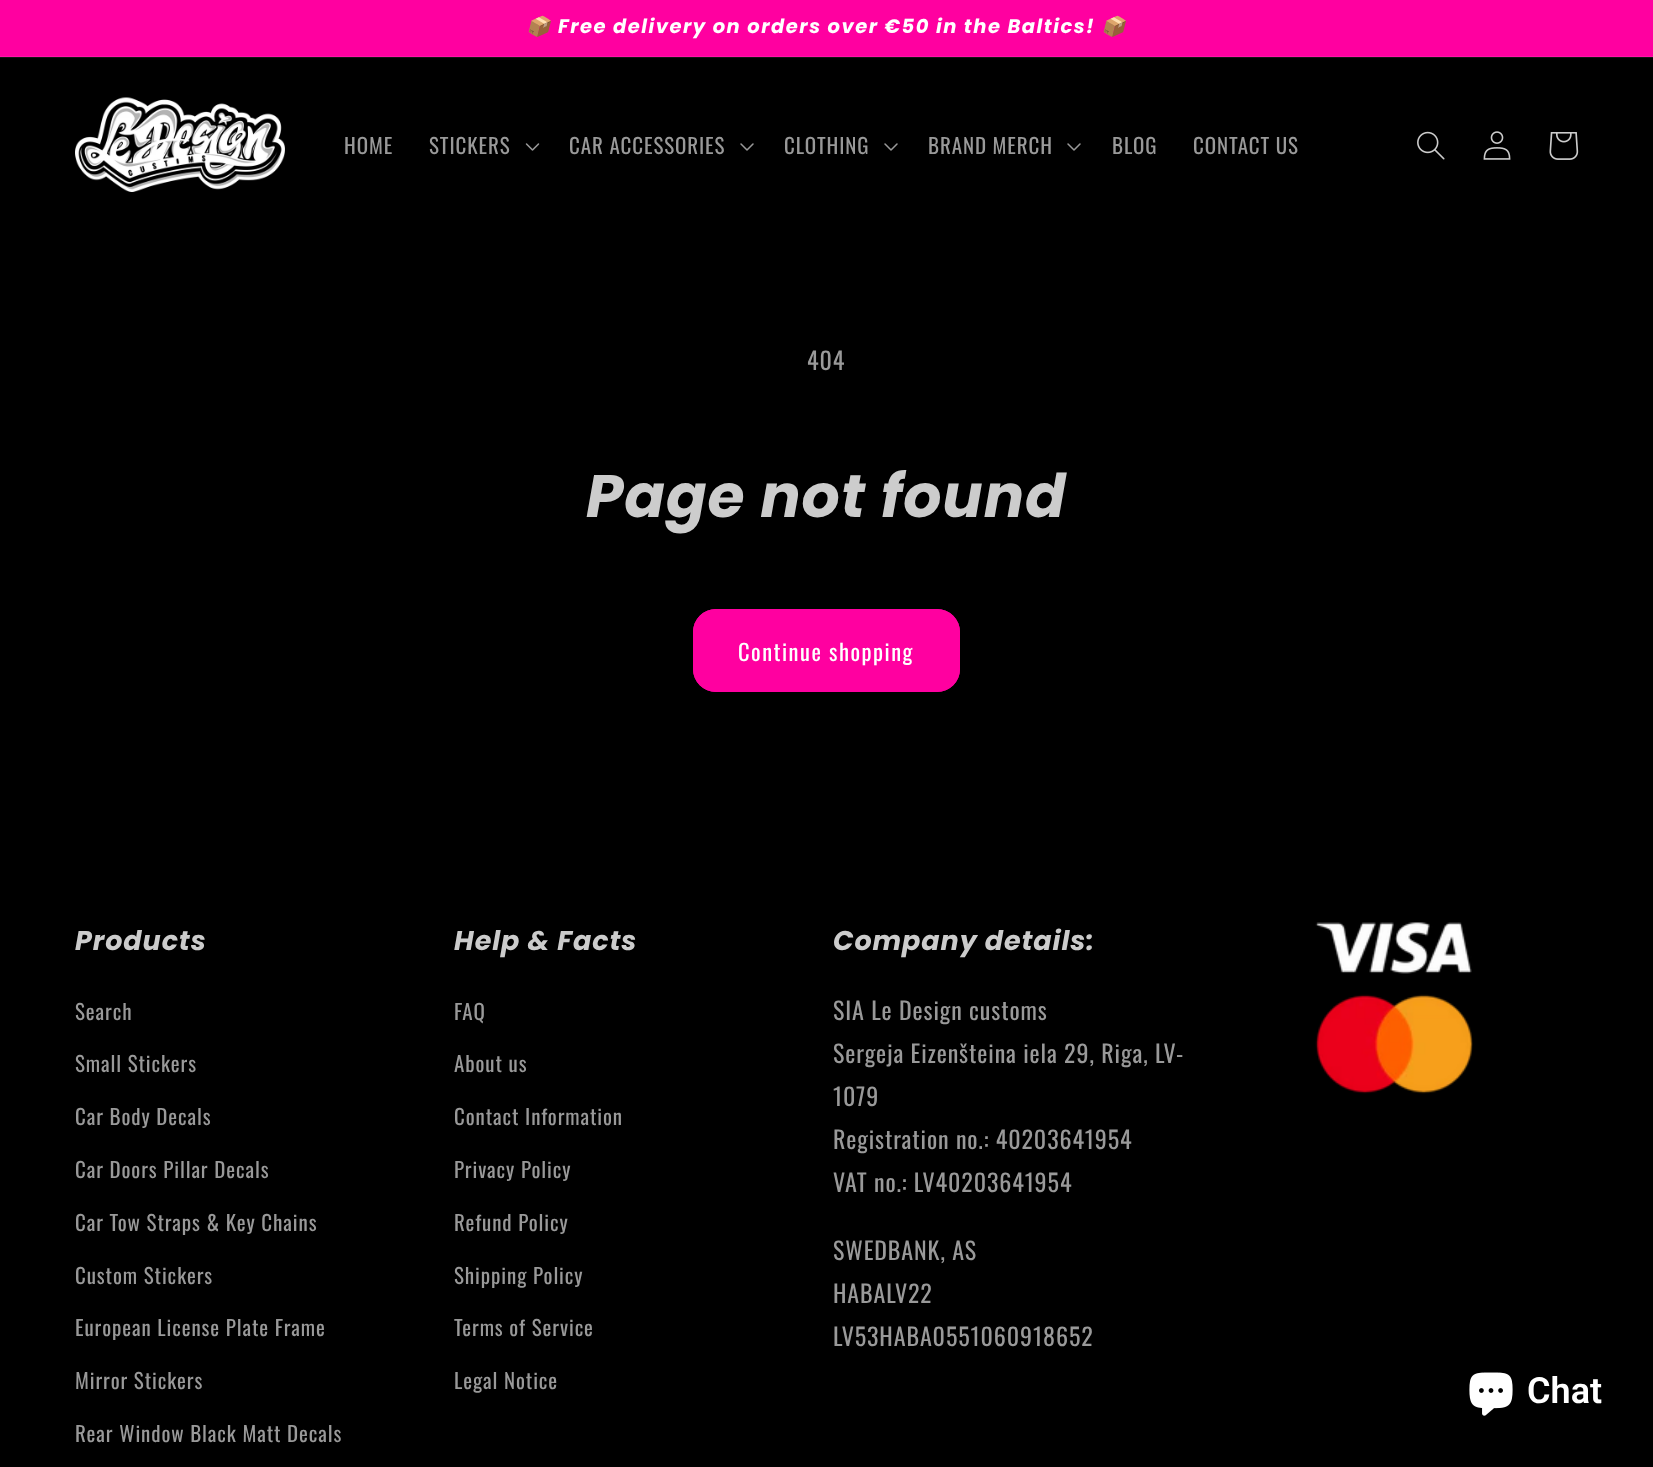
<svg xmlns="http://www.w3.org/2000/svg" width="1653" height="1467">
<rect width="100%" height="100%" fill="#000"/>
<rect y="57" width="1653" height="1" fill="#141414"/>
<rect width="1653" height="56" fill="#ff00a0"/>
<rect y="56" width="1653" height="1" fill="#ff14a8"/>
<text x="526" y="33" style="font-family:Noto Color Emoji;font-size:19.5px;font-weight:bold;font-style:italic;letter-spacing:1.5px;fill:#fff">📦</text>
<text x="558" y="33" style="font-family:Poppins;font-size:19.5px;font-weight:bold;font-style:italic;letter-spacing:1.5px;fill:#fff">Free delivery on orders over €50 in the Baltics!</text>
<text x="1101" y="33" style="font-family:Noto Color Emoji;font-size:19.5px;font-weight:bold;font-style:italic;letter-spacing:1.5px;fill:#fff">📦</text>
<image x="75" y="97" width="210" height="95" href="media/1.png"/>
<text x="344" y="154" style="font-family:Oswald;font-size:21px;letter-spacing:0.9px;fill:#999">HOME</text>
<text x="429" y="154" style="font-family:Oswald;font-size:21px;letter-spacing:0.9px;fill:#999">STICKERS</text>
<image x="525" y="143" width="15" height="8" href="media/2.png"/>
<text x="569" y="154" style="font-family:Oswald;font-size:21px;letter-spacing:0.9px;fill:#999">CAR ACCESSORIES</text>
<image x="740" y="143" width="14" height="8" href="media/3.png"/>
<text x="784" y="154" style="font-family:Oswald;font-size:21px;letter-spacing:0.9px;fill:#999">CLOTHING</text>
<image x="884" y="143" width="14" height="8" href="media/3.png"/>
<text x="928" y="154" style="font-family:Oswald;font-size:21px;letter-spacing:0.9px;fill:#999">BRAND MERCH</text>
<image x="1067" y="143" width="14" height="8" href="media/3.png"/>
<text x="1112" y="154" style="font-family:Oswald;font-size:21px;letter-spacing:0.9px;fill:#999">BLOG</text>
<text x="1193" y="154" style="font-family:Oswald;font-size:21px;letter-spacing:0.9px;fill:#999">CONTACT US</text>
<image x="1417" y="131" width="28" height="29" href="media/4.png"/>
<image x="1483" y="131" width="28" height="29" href="media/5.png"/>
<image x="1549" y="132" width="30" height="28" href="media/6.png"/>
<text x="807" y="370" style="font-family:Oswald;font-size:24px;letter-spacing:0.9px;fill:#999">404</text>
<text x="586" y="517" style="font-family:Poppins;font-size:60px;font-weight:bold;font-style:italic;letter-spacing:0.9px;fill:#ccc">Page not found</text>
<rect x="693" y="609" width="267" height="83" rx="23" fill="#ff00a0"/>
<rect x="697" y="613" width="259" height="75" rx="19" fill="none" stroke="#ff00a0" stroke-width="8"/>
<text x="738" y="661" style="font-family:Oswald;font-size:22.5px;letter-spacing:1.5px;fill:#fff">Continue shopping</text>
<text x="75" y="950" style="font-family:Poppins;font-size:27px;font-weight:bold;font-style:italic;letter-spacing:0.9px;fill:#ccc">Products</text>
<text x="75" y="1020" style="font-family:Oswald;font-size:21px;letter-spacing:0.9px;fill:#999">Search</text>
<text x="75" y="1072" style="font-family:Oswald;font-size:21px;letter-spacing:0.9px;fill:#999">Small Stickers</text>
<text x="75" y="1125" style="font-family:Oswald;font-size:21px;letter-spacing:0.9px;fill:#999">Car Body Decals</text>
<text x="75" y="1178" style="font-family:Oswald;font-size:21px;letter-spacing:0.9px;fill:#999">Car Doors Pillar Decals</text>
<text x="75" y="1231" style="font-family:Oswald;font-size:21px;letter-spacing:0.9px;fill:#999">Car Tow Straps &amp; Key Chains</text>
<text x="75" y="1284" style="font-family:Oswald;font-size:21px;letter-spacing:0.9px;fill:#999">Custom Stickers</text>
<text x="75" y="1336" style="font-family:Oswald;font-size:21px;letter-spacing:0.9px;fill:#999">European License Plate Frame</text>
<text x="75" y="1389" style="font-family:Oswald;font-size:21px;letter-spacing:0.9px;fill:#999">Mirror Stickers</text>
<text x="75" y="1442" style="font-family:Oswald;font-size:21px;letter-spacing:0.9px;fill:#999">Rear Window Black Matt Decals</text>
<text x="454" y="950" style="font-family:Poppins;font-size:27px;font-weight:bold;font-style:italic;letter-spacing:0.9px;fill:#ccc">Help &amp; Facts</text>
<text x="454" y="1020" style="font-family:Oswald;font-size:21px;letter-spacing:0.9px;fill:#999">FAQ</text>
<text x="454" y="1072" style="font-family:Oswald;font-size:21px;letter-spacing:0.9px;fill:#999">About us</text>
<text x="454" y="1125" style="font-family:Oswald;font-size:21px;letter-spacing:0.9px;fill:#999">Contact Information</text>
<text x="454" y="1178" style="font-family:Oswald;font-size:21px;letter-spacing:0.9px;fill:#999">Privacy Policy</text>
<text x="454" y="1231" style="font-family:Oswald;font-size:21px;letter-spacing:0.9px;fill:#999">Refund Policy</text>
<text x="454" y="1284" style="font-family:Oswald;font-size:21px;letter-spacing:0.9px;fill:#999">Shipping Policy</text>
<text x="454" y="1336" style="font-family:Oswald;font-size:21px;letter-spacing:0.9px;fill:#999">Terms of Service</text>
<text x="454" y="1389" style="font-family:Oswald;font-size:21px;letter-spacing:0.9px;fill:#999">Legal Notice</text>
<text x="833" y="950" style="font-family:Poppins;font-size:27px;font-weight:bold;font-style:italic;letter-spacing:0.9px;fill:#ccc">Company details:</text>
<text x="833" y="1020" style="font-family:Oswald;font-size:24px;letter-spacing:0.9px;fill:#999">SIA Le Design customs</text>
<text x="833" y="1063" style="font-family:Oswald;font-size:24px;letter-spacing:0.9px;fill:#999">Sergeja Eizenšteina iela 29, Riga, LV-</text>
<text x="833" y="1106" style="font-family:Oswald;font-size:24px;letter-spacing:0.9px;fill:#999">1079</text>
<text x="833" y="1149" style="font-family:Oswald;font-size:24px;letter-spacing:0.9px;fill:#999">Registration no.: 40203641954</text>
<text x="833" y="1192" style="font-family:Oswald;font-size:24px;letter-spacing:0.9px;fill:#999">VAT no.: LV40203641954</text>
<text x="833" y="1260" style="font-family:Oswald;font-size:24px;letter-spacing:0.9px;fill:#999">SWEDBANK, AS</text>
<text x="833" y="1303" style="font-family:Oswald;font-size:24px;letter-spacing:0.9px;fill:#999">HABALV22</text>
<text x="833" y="1346" style="font-family:Oswald;font-size:24px;letter-spacing:0.9px;fill:#999">LV53HABA0551060918652</text>
<image x="1315" y="922" width="158" height="172" href="media/7.png"/>
<image x="1469" y="1372" width="44" height="44" href="media/8.png"/>
<text x="1527" y="1403" style="font-family:Roboto;font-size:36px;font-weight:600;fill:#fff">Chat</text>
</svg>
